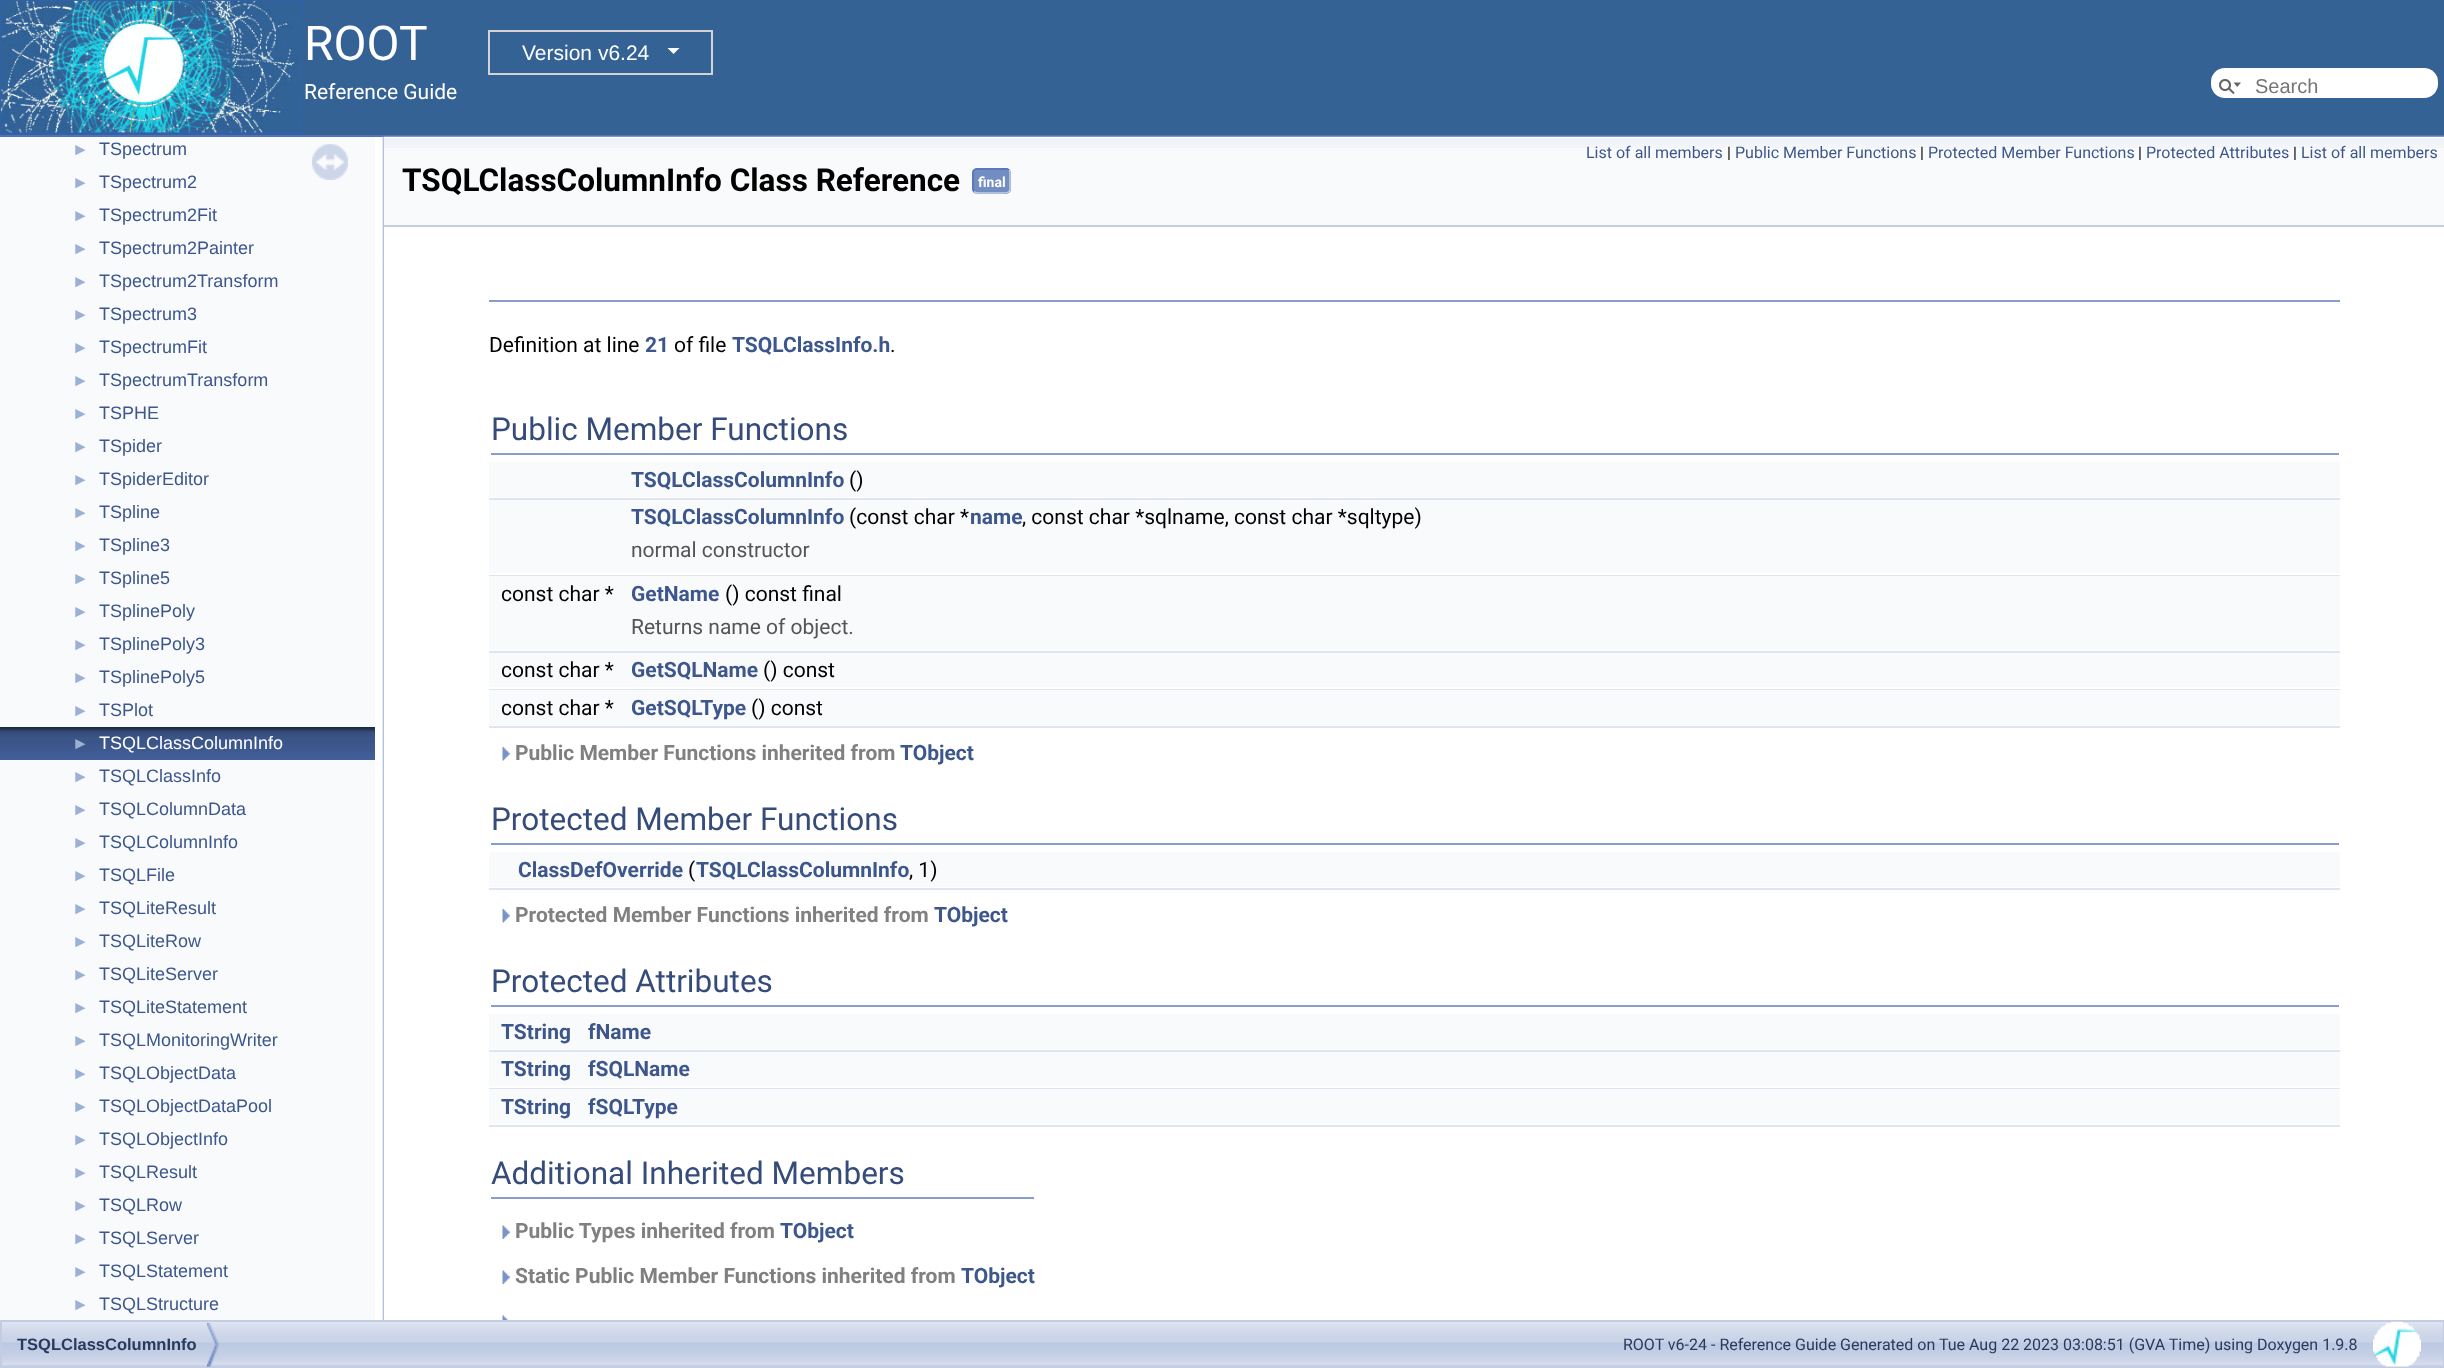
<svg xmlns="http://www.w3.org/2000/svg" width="2444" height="1368">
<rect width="100%" height="100%" fill="#fff"/>
<rect y="135" width="2444" height="2" fill="#5373b4"/>
<rect x="304" width="2140" height="135" fill="#346295"/>
<image x="0" y="0" width="305" height="135" href="media/1.png"/>
<text x="304" y="60" style="font-family:Roboto;font-size:48px;fill:#fff">ROOT</text>
<rect x="489" y="31" width="223" height="43" fill="none" stroke="#d3d3d3" stroke-width="2"/>
<text x="522" y="60" style="font-family:Liberation Sans;font-size:21px;fill:#fff">Version v6.24</text>
<path d="M667.5 48h12l-6 6z" fill="#fff"/>
<text x="304" y="99" style="font-family:Roboto;font-size:21px;fill:#fff">Reference Guide</text>
<rect x="2211" y="68" width="227" height="30" rx="14" fill="#fff"/>
<image x="2219" y="79" width="22" height="15" href="media/2.png"/>
<text x="2255" y="93" style="font-family:Liberation Sans;font-size:20px;fill:#757575">Search</text>
<rect y="137" width="375" height="1183" fill="#f9fafc"/>
<text x="72" y="155" style="font-family:Liberation Sans;font-size:17px;fill:#9cafd4">►</text>
<text x="99" y="155" style="font-family:Liberation Sans;font-size:18px;fill:#3d578c">TSpectrum</text>
<text x="72" y="188" style="font-family:Liberation Sans;font-size:17px;fill:#9cafd4">►</text>
<text x="99" y="188" style="font-family:Liberation Sans;font-size:18px;fill:#3d578c">TSpectrum2</text>
<text x="72" y="221" style="font-family:Liberation Sans;font-size:17px;fill:#9cafd4">►</text>
<text x="99" y="221" style="font-family:Liberation Sans;font-size:18px;fill:#3d578c">TSpectrum2Fit</text>
<text x="72" y="254" style="font-family:Liberation Sans;font-size:17px;fill:#9cafd4">►</text>
<text x="99" y="254" style="font-family:Liberation Sans;font-size:18px;fill:#3d578c">TSpectrum2Painter</text>
<text x="72" y="287" style="font-family:Liberation Sans;font-size:17px;fill:#9cafd4">►</text>
<text x="99" y="287" style="font-family:Liberation Sans;font-size:18px;fill:#3d578c">TSpectrum2Transform</text>
<text x="72" y="320" style="font-family:Liberation Sans;font-size:17px;fill:#9cafd4">►</text>
<text x="99" y="320" style="font-family:Liberation Sans;font-size:18px;fill:#3d578c">TSpectrum3</text>
<text x="72" y="353" style="font-family:Liberation Sans;font-size:17px;fill:#9cafd4">►</text>
<text x="99" y="353" style="font-family:Liberation Sans;font-size:18px;fill:#3d578c">TSpectrumFit</text>
<text x="72" y="386" style="font-family:Liberation Sans;font-size:17px;fill:#9cafd4">►</text>
<text x="99" y="386" style="font-family:Liberation Sans;font-size:18px;fill:#3d578c">TSpectrumTransform</text>
<text x="72" y="419" style="font-family:Liberation Sans;font-size:17px;fill:#9cafd4">►</text>
<text x="99" y="419" style="font-family:Liberation Sans;font-size:18px;fill:#3d578c">TSPHE</text>
<text x="72" y="452" style="font-family:Liberation Sans;font-size:17px;fill:#9cafd4">►</text>
<text x="99" y="452" style="font-family:Liberation Sans;font-size:18px;fill:#3d578c">TSpider</text>
<text x="72" y="485" style="font-family:Liberation Sans;font-size:17px;fill:#9cafd4">►</text>
<text x="99" y="485" style="font-family:Liberation Sans;font-size:18px;fill:#3d578c">TSpiderEditor</text>
<text x="72" y="518" style="font-family:Liberation Sans;font-size:17px;fill:#9cafd4">►</text>
<text x="99" y="518" style="font-family:Liberation Sans;font-size:18px;fill:#3d578c">TSpline</text>
<text x="72" y="551" style="font-family:Liberation Sans;font-size:17px;fill:#9cafd4">►</text>
<text x="99" y="551" style="font-family:Liberation Sans;font-size:18px;fill:#3d578c">TSpline3</text>
<text x="72" y="584" style="font-family:Liberation Sans;font-size:17px;fill:#9cafd4">►</text>
<text x="99" y="584" style="font-family:Liberation Sans;font-size:18px;fill:#3d578c">TSpline5</text>
<text x="72" y="617" style="font-family:Liberation Sans;font-size:17px;fill:#9cafd4">►</text>
<text x="99" y="617" style="font-family:Liberation Sans;font-size:18px;fill:#3d578c">TSplinePoly</text>
<text x="72" y="650" style="font-family:Liberation Sans;font-size:17px;fill:#9cafd4">►</text>
<text x="99" y="650" style="font-family:Liberation Sans;font-size:18px;fill:#3d578c">TSplinePoly3</text>
<text x="72" y="683" style="font-family:Liberation Sans;font-size:17px;fill:#9cafd4">►</text>
<text x="99" y="683" style="font-family:Liberation Sans;font-size:18px;fill:#3d578c">TSplinePoly5</text>
<text x="72" y="716" style="font-family:Liberation Sans;font-size:17px;fill:#9cafd4">►</text>
<text x="99" y="716" style="font-family:Liberation Sans;font-size:18px;fill:#3d578c">TSPlot</text>
<image x="0" y="727" width="375" height="33" href="media/3.png"/>
<text x="72" y="749" style="font-family:Liberation Sans;font-size:17px;fill:#9cafd4">►</text>
<text x="99" y="749" style="font-family:Liberation Sans;font-size:18px;fill:#fff">TSQLClassColumnInfo</text>
<text x="72" y="782" style="font-family:Liberation Sans;font-size:17px;fill:#9cafd4">►</text>
<text x="99" y="782" style="font-family:Liberation Sans;font-size:18px;fill:#3d578c">TSQLClassInfo</text>
<text x="72" y="815" style="font-family:Liberation Sans;font-size:17px;fill:#9cafd4">►</text>
<text x="99" y="815" style="font-family:Liberation Sans;font-size:18px;fill:#3d578c">TSQLColumnData</text>
<text x="72" y="848" style="font-family:Liberation Sans;font-size:17px;fill:#9cafd4">►</text>
<text x="99" y="848" style="font-family:Liberation Sans;font-size:18px;fill:#3d578c">TSQLColumnInfo</text>
<text x="72" y="881" style="font-family:Liberation Sans;font-size:17px;fill:#9cafd4">►</text>
<text x="99" y="881" style="font-family:Liberation Sans;font-size:18px;fill:#3d578c">TSQLFile</text>
<text x="72" y="914" style="font-family:Liberation Sans;font-size:17px;fill:#9cafd4">►</text>
<text x="99" y="914" style="font-family:Liberation Sans;font-size:18px;fill:#3d578c">TSQLiteResult</text>
<text x="72" y="947" style="font-family:Liberation Sans;font-size:17px;fill:#9cafd4">►</text>
<text x="99" y="947" style="font-family:Liberation Sans;font-size:18px;fill:#3d578c">TSQLiteRow</text>
<text x="72" y="980" style="font-family:Liberation Sans;font-size:17px;fill:#9cafd4">►</text>
<text x="99" y="980" style="font-family:Liberation Sans;font-size:18px;fill:#3d578c">TSQLiteServer</text>
<text x="72" y="1013" style="font-family:Liberation Sans;font-size:17px;fill:#9cafd4">►</text>
<text x="99" y="1013" style="font-family:Liberation Sans;font-size:18px;fill:#3d578c">TSQLiteStatement</text>
<text x="72" y="1046" style="font-family:Liberation Sans;font-size:17px;fill:#9cafd4">►</text>
<text x="99" y="1046" style="font-family:Liberation Sans;font-size:18px;fill:#3d578c">TSQLMonitoringWriter</text>
<text x="72" y="1079" style="font-family:Liberation Sans;font-size:17px;fill:#9cafd4">►</text>
<text x="99" y="1079" style="font-family:Liberation Sans;font-size:18px;fill:#3d578c">TSQLObjectData</text>
<text x="72" y="1112" style="font-family:Liberation Sans;font-size:17px;fill:#9cafd4">►</text>
<text x="99" y="1112" style="font-family:Liberation Sans;font-size:18px;fill:#3d578c">TSQLObjectDataPool</text>
<text x="72" y="1145" style="font-family:Liberation Sans;font-size:17px;fill:#9cafd4">►</text>
<text x="99" y="1145" style="font-family:Liberation Sans;font-size:18px;fill:#3d578c">TSQLObjectInfo</text>
<text x="72" y="1178" style="font-family:Liberation Sans;font-size:17px;fill:#9cafd4">►</text>
<text x="99" y="1178" style="font-family:Liberation Sans;font-size:18px;fill:#3d578c">TSQLResult</text>
<text x="72" y="1211" style="font-family:Liberation Sans;font-size:17px;fill:#9cafd4">►</text>
<text x="99" y="1211" style="font-family:Liberation Sans;font-size:18px;fill:#3d578c">TSQLRow</text>
<text x="72" y="1244" style="font-family:Liberation Sans;font-size:17px;fill:#9cafd4">►</text>
<text x="99" y="1244" style="font-family:Liberation Sans;font-size:18px;fill:#3d578c">TSQLServer</text>
<text x="72" y="1277" style="font-family:Liberation Sans;font-size:17px;fill:#9cafd4">►</text>
<text x="99" y="1277" style="font-family:Liberation Sans;font-size:18px;fill:#3d578c">TSQLStatement</text>
<text x="72" y="1310" style="font-family:Liberation Sans;font-size:17px;fill:#9cafd4">►</text>
<text x="99" y="1310" style="font-family:Liberation Sans;font-size:18px;fill:#3d578c">TSQLStructure</text>
<image x="312" y="144" width="36" height="36" href="media/4.png"/>
<image x="382" y="136" width="2" height="1184" href="media/5.png"/>
<rect x="384" y="148" width="2060" height="77" fill="#f9fafc"/>
<image x="384" y="136" width="2060" height="12" href="media/6.png"/>
<rect x="384" y="225" width="2060" height="2" fill="#c4cfe5"/>
<text x="1586" y="158" style="font-family:Roboto;font-size:16px;fill:#3d578c">List of all members</text>
<text x="1727" y="158" style="font-family:Roboto;font-size:16px;fill:#000">|</text>
<text x="1735" y="158" style="font-family:Roboto;font-size:16px;fill:#3d578c">Public Member Functions</text>
<text x="1920" y="158" style="font-family:Roboto;font-size:16px;fill:#000">|</text>
<text x="1928" y="158" style="font-family:Roboto;font-size:16px;fill:#3d578c">Protected Member Functions</text>
<text x="2138" y="158" style="font-family:Roboto;font-size:16px;fill:#000">|</text>
<text x="2146" y="158" style="font-family:Roboto;font-size:16px;fill:#3d578c">Protected Attributes</text>
<text x="2293" y="158" style="font-family:Roboto;font-size:16px;fill:#000">|</text>
<text x="2301" y="158" style="font-family:Roboto;font-size:16px;fill:#3d578c">List of all members</text>
<text x="402" y="191" style="font-family:Roboto;font-size:31.5px;font-weight:bold;fill:#000">TSQLClassColumnInfo Class Reference</text>
<rect x="972" y="168" width="39" height="26" rx="5" fill="#728dc1"/>
<path d="M1009 170c1.5 1.5 1 3.5 1 5v14.5c-.5 4-5.5 3.5-8.5 3.5h-20c-2 0-6 .5-7.5-1.5" fill="none" stroke="#c4cfe5" stroke-width="1.5"/>
<path d="M974 191.5c-1.5-1.5-1-3.5-1-5.5v-14c.5-4 5.5-3 8.5-3h20c2 0 6-1 7.5 1" fill="none" stroke="#5373b4" stroke-width="1.5"/>
<text x="978" y="187" style="font-family:Roboto;font-size:14px;font-weight:bold;fill:#fff">final</text>
<rect x="489" y="300" width="1851" height="2" fill="#879ecb"/>
<text x="489" y="352" style="font-family:Roboto;font-size:21px;fill:#000">Definition at line</text>
<text x="645" y="352" style="font-family:Roboto;font-size:21px;font-weight:bold;fill:#3d578c">21</text>
<text x="674" y="352" style="font-family:Roboto;font-size:21px;fill:#000">of file</text>
<text x="732" y="352" style="font-family:Roboto;font-size:21px;font-weight:bold;fill:#3d578c">TSQLClassInfo.h</text>
<text x="890" y="352" style="font-family:Roboto;font-size:21px;fill:#000">.</text>
<rect x="491" y="453" width="1848" height="2" fill="#879ecb"/>
<text x="491" y="440" style="font-family:Roboto;font-size:31.5px;fill:#354c7b">Public Member Functions</text>
<rect x="489" y="462" width="1851" height="35" fill="#f9fafc"/>
<text x="631" y="487" style="font-family:Roboto;font-size:21px;font-weight:bold;fill:#3d578c">TSQLClassColumnInfo</text>
<text x="849" y="487" style="font-family:Roboto;font-size:21px;fill:#000">()</text>
<rect x="489" y="498" width="1851" height="2" fill="#dee4f0"/>
<rect x="489" y="500" width="1851" height="34" fill="#f9fafc"/>
<text x="631" y="524" style="font-family:Roboto;font-size:21px;font-weight:bold;fill:#3d578c">TSQLClassColumnInfo</text>
<text x="849" y="524" style="font-family:Roboto;font-size:21px;fill:#000">(const char *</text>
<text x="970" y="524" style="font-family:Roboto;font-size:21px;font-weight:bold;fill:#3d578c">name</text>
<text x="1022" y="524" style="font-family:Roboto;font-size:21px;fill:#000">, const char *sqlname, const char *sqltype)</text>
<rect x="489" y="534" width="1851" height="39" fill="#f9fafc"/>
<text x="631" y="557" style="font-family:Roboto;font-size:21px;fill:#555">normal constructor</text>
<rect x="489" y="575" width="1851" height="1" fill="#dee4f0"/>
<rect x="489" y="576" width="1851" height="35" fill="#f9fafc"/>
<text x="501" y="601" style="font-family:Roboto;font-size:21px;fill:#000">const char *</text>
<text x="631" y="601" style="font-family:Roboto;font-size:21px;font-weight:bold;fill:#3d578c">GetName</text>
<text x="725" y="601" style="font-family:Roboto;font-size:21px;fill:#000">() const final</text>
<rect x="489" y="611" width="1851" height="39" fill="#f9fafc"/>
<text x="631" y="634" style="font-family:Roboto;font-size:21px;fill:#555">Returns name of object.</text>
<rect x="489" y="651" width="1851" height="2" fill="#dee4f0"/>
<rect x="489" y="653" width="1851" height="34" fill="#f9fafc"/>
<text x="501" y="677" style="font-family:Roboto;font-size:21px;fill:#000">const char *</text>
<text x="631" y="677" style="font-family:Roboto;font-size:21px;font-weight:bold;fill:#3d578c">GetSQLName</text>
<text x="763" y="677" style="font-family:Roboto;font-size:21px;fill:#000">() const</text>
<rect x="489" y="689" width="1851" height="1" fill="#dee4f0"/>
<rect x="489" y="690" width="1851" height="35" fill="#f9fafc"/>
<text x="501" y="715" style="font-family:Roboto;font-size:21px;fill:#000">const char *</text>
<text x="631" y="715" style="font-family:Roboto;font-size:21px;font-weight:bold;fill:#3d578c">GetSQLType</text>
<text x="751" y="715" style="font-family:Roboto;font-size:21px;fill:#000">() const</text>
<rect x="489" y="726" width="1851" height="2" fill="#dee4f0"/>
<image x="502" y="747" width="8" height="14" href="media/7.png"/>
<text x="515" y="760" style="font-family:Roboto;font-size:21px;font-weight:bold;fill:#808080">Public Member Functions inherited from</text>
<text x="900" y="760" style="font-family:Roboto;font-size:21px;font-weight:bold;fill:#3d578c">TObject</text>
<rect x="491" y="843" width="1848" height="2" fill="#879ecb"/>
<text x="491" y="830" style="font-family:Roboto;font-size:31.5px;fill:#354c7b">Protected Member Functions</text>
<rect x="489" y="852" width="1851" height="35" fill="#f9fafc"/>
<text x="518" y="877" style="font-family:Roboto;font-size:21px;font-weight:bold;fill:#3d578c">ClassDefOverride</text>
<text x="688" y="877" style="font-family:Roboto;font-size:21px;fill:#000">(</text>
<text x="696" y="877" style="font-family:Roboto;font-size:21px;font-weight:bold;fill:#3d578c">TSQLClassColumnInfo</text>
<text x="909" y="877" style="font-family:Roboto;font-size:21px;fill:#000">, 1)</text>
<rect x="489" y="888" width="1851" height="2" fill="#dee4f0"/>
<image x="502" y="909" width="8" height="14" href="media/7.png"/>
<text x="515" y="922" style="font-family:Roboto;font-size:21px;font-weight:bold;fill:#808080">Protected Member Functions inherited from</text>
<text x="934" y="922" style="font-family:Roboto;font-size:21px;font-weight:bold;fill:#3d578c">TObject</text>
<rect x="491" y="1005" width="1848" height="2" fill="#879ecb"/>
<text x="491" y="992" style="font-family:Roboto;font-size:31.5px;fill:#354c7b">Protected Attributes</text>
<rect x="489" y="1014" width="1851" height="35" fill="#f9fafc"/>
<text x="501" y="1039" style="font-family:Roboto;font-size:21px;font-weight:bold;fill:#3d578c">TString</text>
<text x="588" y="1039" style="font-family:Roboto;font-size:21px;font-weight:bold;fill:#3d578c">fName</text>
<rect x="489" y="1050" width="1851" height="2" fill="#dee4f0"/>
<rect x="489" y="1052" width="1851" height="34" fill="#f9fafc"/>
<text x="501" y="1076" style="font-family:Roboto;font-size:21px;font-weight:bold;fill:#3d578c">TString</text>
<text x="588" y="1076" style="font-family:Roboto;font-size:21px;font-weight:bold;fill:#3d578c">fSQLName</text>
<rect x="489" y="1088" width="1851" height="1" fill="#dee4f0"/>
<rect x="489" y="1089" width="1851" height="35" fill="#f9fafc"/>
<text x="501" y="1114" style="font-family:Roboto;font-size:21px;font-weight:bold;fill:#3d578c">TString</text>
<text x="588" y="1114" style="font-family:Roboto;font-size:21px;font-weight:bold;fill:#3d578c">fSQLType</text>
<rect x="489" y="1125" width="1851" height="2" fill="#dee4f0"/>
<rect x="491" y="1197" width="543" height="2" fill="#879ecb"/>
<text x="491" y="1184" style="font-family:Roboto;font-size:31.5px;fill:#354c7b">Additional Inherited Members</text>
<image x="502" y="1225" width="8" height="14" href="media/8.png"/>
<text x="515" y="1238" style="font-family:Roboto;font-size:21px;font-weight:bold;fill:#808080">Public Types inherited from</text>
<text x="780" y="1238" style="font-family:Roboto;font-size:21px;font-weight:bold;fill:#3d578c">TObject</text>
<image x="502" y="1270" width="8" height="14" href="media/8.png"/>
<text x="515" y="1283" style="font-family:Roboto;font-size:21px;font-weight:bold;fill:#808080">Static Public Member Functions inherited from</text>
<text x="961" y="1283" style="font-family:Roboto;font-size:21px;font-weight:bold;fill:#3d578c">TObject</text>
<image x="502" y="1315" width="7" height="5" href="media/9.png"/>
<image x="2" y="1322" width="2441" height="44" href="media/10.png"/>
<rect x="1" y="1321" width="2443" height="46" fill="none" stroke="#c2cde4" stroke-width="2"/>
<image x="207" y="1323" width="12" height="44" href="media/11.png"/>
<text x="17" y="1350" style="font-family:Liberation Sans;font-size:16.5px;font-weight:bold;fill:#283a5d">TSQLClassColumnInfo</text>
<text x="1623" y="1350" style="font-family:Roboto;font-size:16px;fill:#283a5d">ROOT v6-24 - Reference Guide Generated on Tue Aug 22 2023 03:08:51 (GVA Time) using Doxygen 1.9.8</text>
<image x="2373" y="1321" width="48" height="46" href="media/12.png"/>
</svg>
